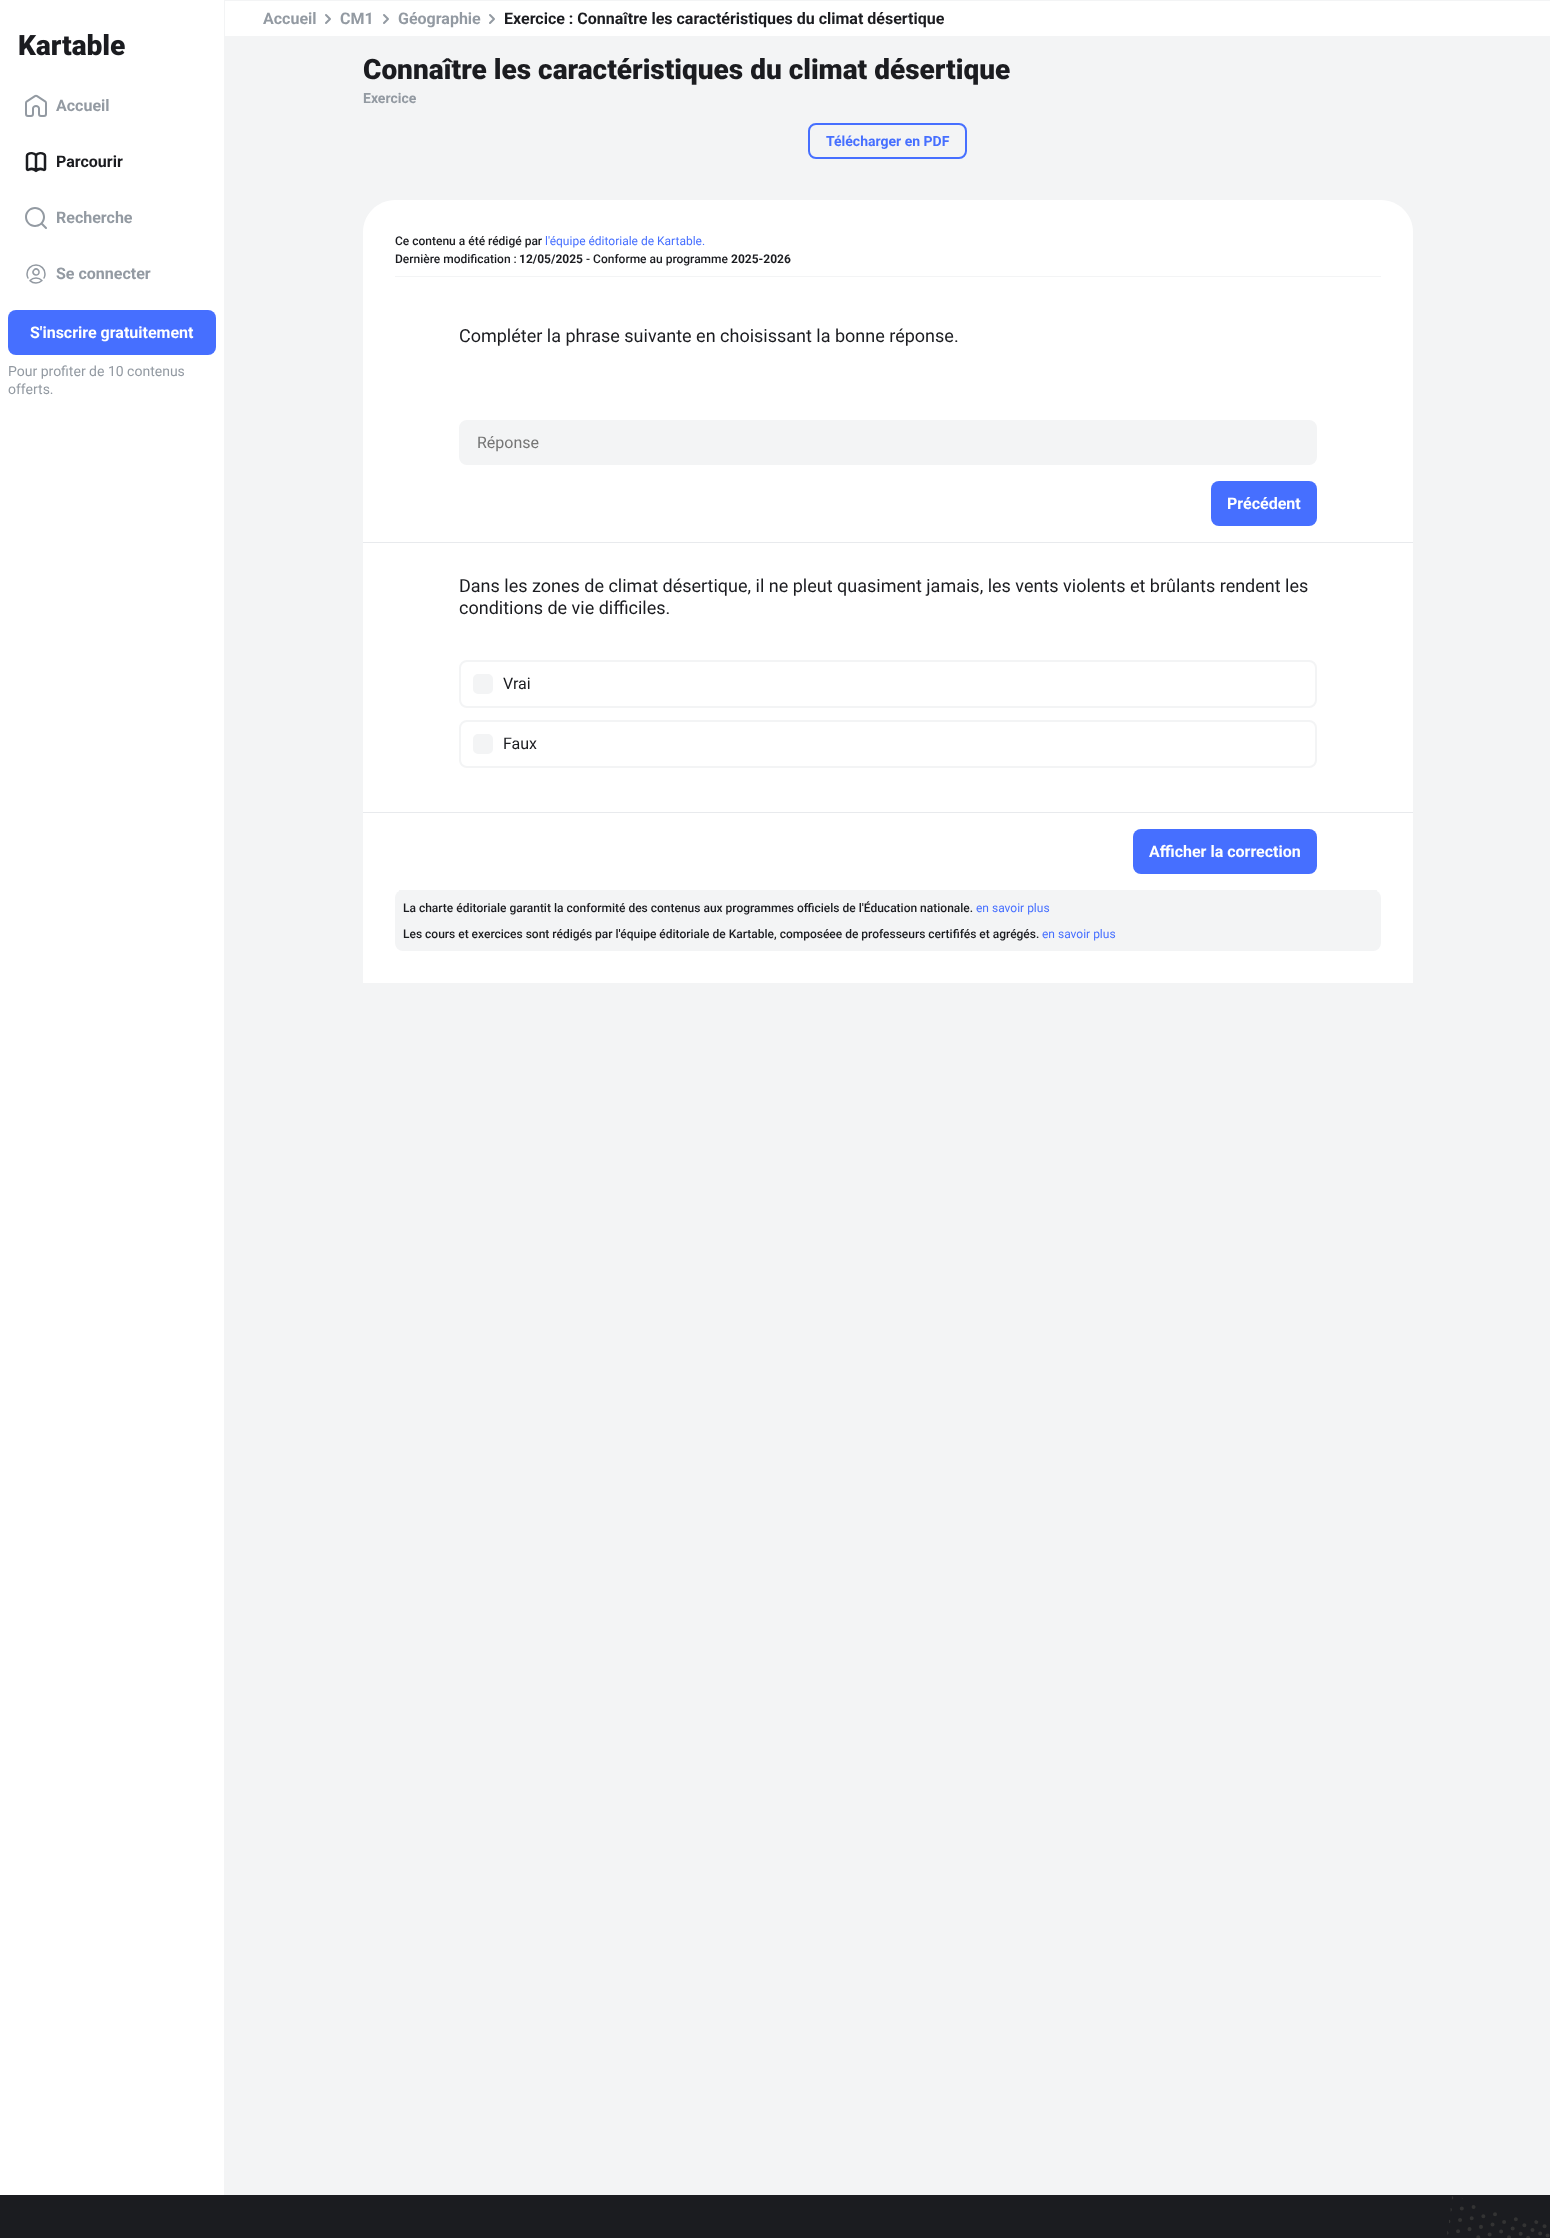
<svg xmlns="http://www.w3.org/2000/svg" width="1550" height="2238">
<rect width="100%" height="100%" fill="#fff"/>
<rect x="224" width="1" height="2195" fill="#f3f4f5"/>
<image x="19" y="34" width="106" height="22" href="media/1.png"/>
<image x="25" y="94" width="22" height="23" href="media/2.png"/>
<text x="56" y="111" style="font-family:Roboto;font-size:16px;font-weight:bold;fill:#939aa2">Accueil</text>
<image x="25" y="152" width="22" height="21" href="media/3.png"/>
<text x="56" y="167" style="font-family:Roboto;font-size:16px;font-weight:bold;fill:#1b1c20">Parcourir</text>
<image x="25" y="207" width="22" height="22" href="media/4.png"/>
<text x="56" y="223" style="font-family:Roboto;font-size:16px;font-weight:bold;fill:#939aa2">Recherche</text>
<image x="26" y="264" width="20" height="20" href="media/5.png"/>
<text x="56" y="279" style="font-family:Roboto;font-size:16px;font-weight:bold;fill:#939aa2">Se connecter</text>
<rect x="8" y="310" width="208" height="45" rx="8" fill="#466fff"/>
<text x="30" y="338" style="font-family:Roboto;font-size:16px;font-weight:bold;fill:#fff">S'inscrire gratuitement</text>
<text x="8" y="376" style="font-family:Roboto;font-size:14px;fill:#939aa2">Pour profiter de 10 contenus</text>
<text x="8" y="394" style="font-family:Roboto;font-size:14px;fill:#939aa2">offerts.</text>
<rect x="225" width="1325" height="1" fill="#f3f4f5"/>
<text x="263" y="24" style="font-family:Roboto;font-size:16px;font-weight:bold;fill:#939aa2">Accueil</text>
<image x="325" y="14" width="6" height="10" href="media/6.png"/>
<text x="340" y="24" style="font-family:Roboto;font-size:16px;font-weight:bold;fill:#939aa2">CM1</text>
<image x="383" y="14" width="6" height="10" href="media/6.png"/>
<text x="398" y="24" style="font-family:Roboto;font-size:16px;font-weight:bold;fill:#939aa2">Géographie</text>
<image x="489" y="14" width="6" height="10" href="media/6.png"/>
<text x="504" y="24" style="font-family:Roboto;font-size:16px;font-weight:bold;fill:#1b1c20">Exercice : Connaître les caractéristiques du climat désertique</text>
<rect x="225" y="36" width="1325" height="2159" fill="#f3f4f5"/>
<text x="363" y="79" style="font-family:Roboto;font-size:28px;font-weight:900;fill:#1b1c20">Connaître les caractéristiques du climat désertique</text>
<text x="363" y="103" style="font-family:Roboto;font-size:14px;font-weight:bold;fill:#939aa2">Exercice</text>
<rect x="809" y="124" width="157" height="34" rx="7" fill="none" stroke="#466fff" stroke-width="2"/>
<text x="826" y="146" style="font-family:Roboto;font-size:14px;font-weight:bold;fill:#466fff">Télécharger en PDF</text>
<path d="M395 200h986c17.5 0 32 14.5 32 32v751h-1050v-751c0-17.5 14.5-32 32-32z" fill="#fff"/>
<rect x="395" y="276" width="986" height="1" fill="#f3f4f5"/>
<text x="395" y="245" style="font-family:Roboto;font-size:12px;font-weight:500;fill:#1b1c20">Ce contenu a été rédigé par</text>
<text x="545" y="245" style="font-family:Roboto;font-size:12px;fill:#466fff">l'équipe éditoriale de Kartable.</text>
<text x="395" y="263" style="font-family:Roboto;font-size:12px;font-weight:500;fill:#1b1c20">Dernière modification :</text>
<text x="519" y="263" style="font-family:Roboto;font-size:12px;font-weight:bold;fill:#1b1c20">12/05/2025</text>
<text x="586" y="263" style="font-family:Roboto;font-size:12px;font-weight:500;fill:#1b1c20">- Conforme au programme</text>
<text x="731" y="263" style="font-family:Roboto;font-size:12px;font-weight:bold;fill:#1b1c20">2025-2026</text>
<rect x="363" y="542" width="1050" height="1" fill="#e8eaed"/>
<text x="459" y="342" style="font-family:Roboto;font-size:18px;fill:#1b1c20">Compléter la phrase suivante en choisissant la bonne réponse.</text>
<rect x="460" y="421" width="856" height="43" rx="7" fill="#f3f4f5" stroke="#f3f4f5" stroke-width="2"/>
<text x="477" y="448" style="font-family:Roboto;font-size:16px;fill:#757575">Réponse</text>
<rect x="1211" y="481" width="106" height="45" rx="8" fill="#466fff"/>
<text x="1227" y="509" style="font-family:Roboto;font-size:16px;font-weight:bold;fill:#fff">Précédent</text>
<rect x="363" y="812" width="1050" height="1" fill="#e8eaed"/>
<text x="459" y="592" style="font-family:Roboto;font-size:18px;fill:#1b1c20">Dans les zones de climat désertique, il ne pleut quasiment jamais, les vents violents et brûlants rendent les</text>
<text x="459" y="614" style="font-family:Roboto;font-size:18px;fill:#1b1c20">conditions de vie difficiles.</text>
<rect x="474" y="675" width="18" height="18" rx="4" fill="#f3f4f5" stroke="#f3f4f5" stroke-width="2"/>
<rect x="460" y="661" width="856" height="46" rx="7" fill="none" stroke="#f3f4f5" stroke-width="2"/>
<text x="503" y="689" style="font-family:Roboto;font-size:16px;fill:#1b1c20">Vrai</text>
<rect x="474" y="735" width="18" height="18" rx="4" fill="#f3f4f5" stroke="#f3f4f5" stroke-width="2"/>
<rect x="460" y="721" width="856" height="46" rx="7" fill="none" stroke="#f3f4f5" stroke-width="2"/>
<text x="503" y="749" style="font-family:Roboto;font-size:16px;fill:#1b1c20">Faux</text>
<rect x="1133" y="829" width="184" height="45" rx="8" fill="#466fff"/>
<text x="1149" y="857" style="font-family:Roboto;font-size:16px;font-weight:bold;fill:#fff">Afficher la correction</text>
<rect x="395" y="890" width="986" height="61" rx="8" fill="#f3f4f5"/>
<rect x="399" y="890" width="978" height="1" fill="#f3f4f5"/>
<text x="403" y="912" style="font-family:Roboto;font-size:12px;font-weight:500;fill:#1b1c20">La charte éditoriale garantit la conformité des contenus aux programmes officiels de l'Éducation nationale.</text>
<text x="976" y="912" style="font-family:Roboto;font-size:12px;fill:#466fff">en savoir plus</text>
<text x="403" y="938" style="font-family:Roboto;font-size:12px;font-weight:500;fill:#1b1c20">Les cours et exercices sont rédigés par l'équipe éditoriale de Kartable, composéee de professeurs certififés et agrégés.</text>
<text x="1042" y="938" style="font-family:Roboto;font-size:12px;fill:#466fff">en savoir plus</text>
<rect y="2195" width="1550" height="43" fill="#1b1c20"/>
<image x="1447" y="2196" width="103" height="42" href="media/7.png"/>
</svg>
